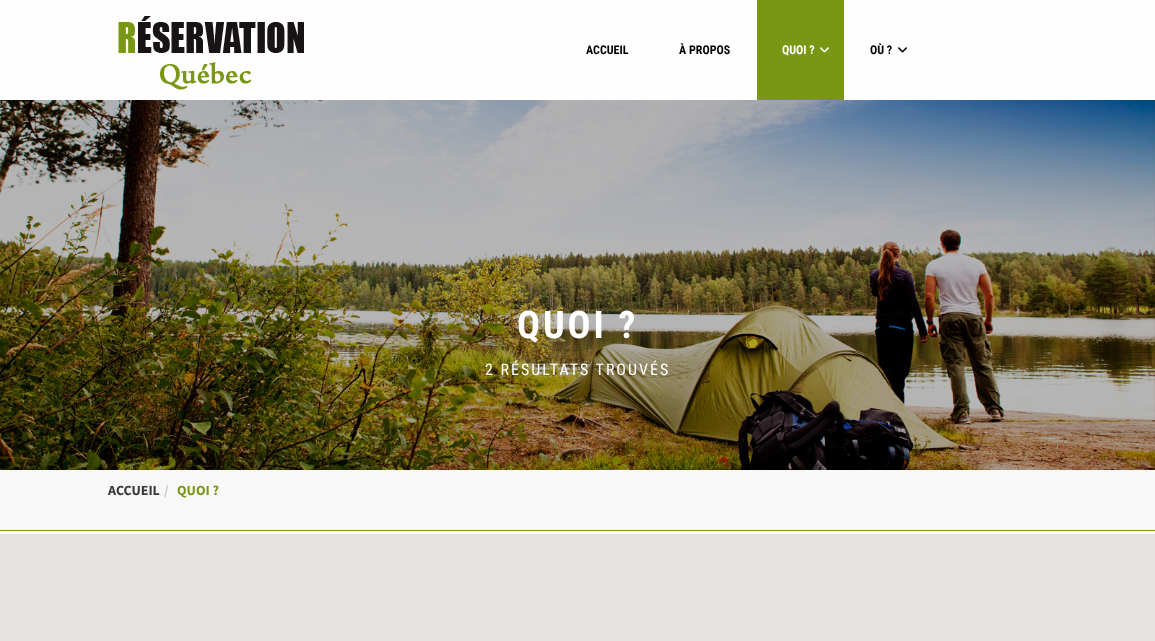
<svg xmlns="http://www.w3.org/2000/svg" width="1155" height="641">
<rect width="100%" height="100%" fill="#f8f8f8"/>
<rect width="1155" height="100" fill="#fefefe"/>
<image x="118" y="16" width="186" height="74" href="media/1.png"/>
<text x="586" y="54" style="font-family:Roboto Condensed;font-size:12px;font-weight:bold;fill:#000">ACCUEIL</text>
<text x="679" y="54" style="font-family:Roboto Condensed;font-size:12px;font-weight:bold;fill:#000">À PROPOS</text>
<rect x="757" width="87" height="100" fill="#799715"/>
<text x="782" y="54" style="font-family:Roboto Condensed;font-size:12px;font-weight:bold;fill:#fff">QUOI ?</text>
<image x="820" y="47" width="9" height="6" href="media/2.png"/>
<text x="870" y="54" style="font-family:Roboto Condensed;font-size:12px;font-weight:bold;fill:#000">OÙ ?</text>
<image x="898" y="47" width="9" height="6" href="media/3.png"/>
<image x="0" y="100" width="1155" height="370" href="media/4.png"/>
<text x="517" y="338" style="font-family:Roboto Condensed;font-size:38px;font-weight:bold;letter-spacing:3px;fill:#fff">QUOI ?</text>
<text x="485" y="375" style="font-family:Roboto Condensed;font-size:16px;letter-spacing:2px;fill:#fff">2 RÉSULTATS TROUVÉS</text>
<text x="108" y="495" style="font-family:Source Sans Pro;font-size:14px;font-weight:bold;fill:#373837">ACCUEIL</text>
<text x="164" y="495" style="font-family:Source Sans Pro;font-size:14px;font-weight:bold;fill:#ccc">/</text>
<text x="177" y="495" style="font-family:Source Sans Pro;font-size:14px;font-weight:bold;fill:#799715">QUOI ?</text>
<rect y="530" width="1155" height="1" fill="#799715"/>
<rect y="534" width="1155" height="107" fill="#e5e3df"/>
</svg>
